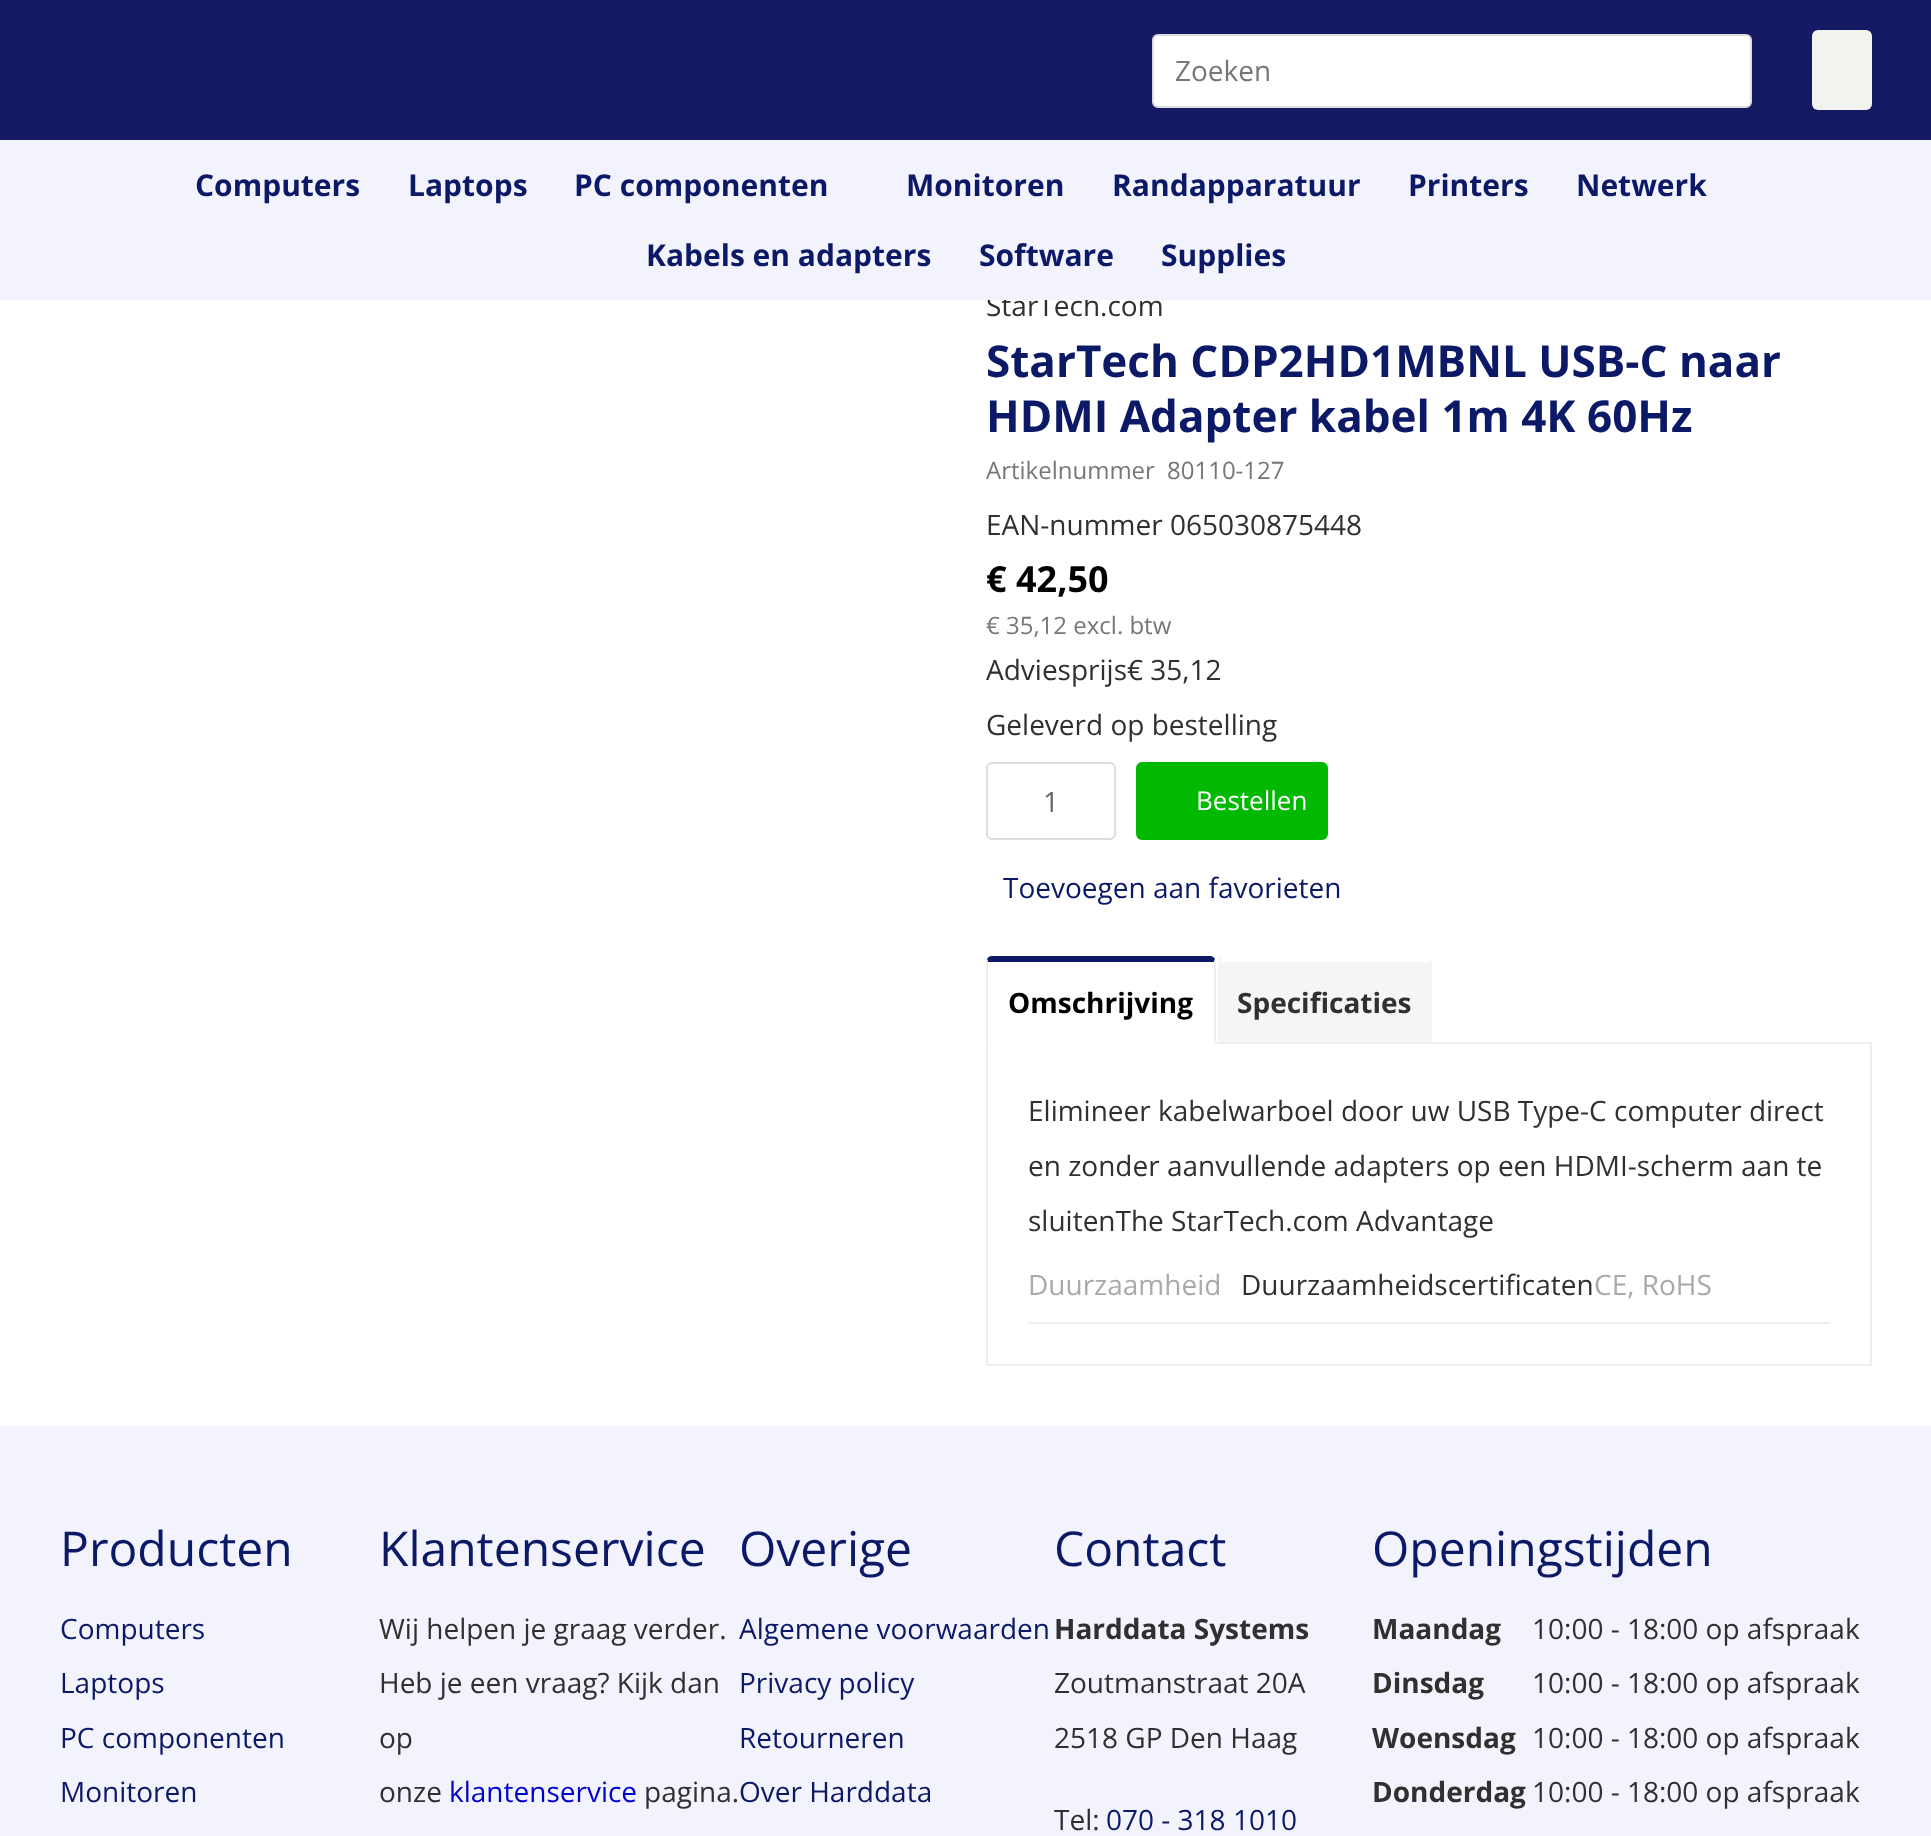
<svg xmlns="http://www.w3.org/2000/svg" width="1931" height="1836">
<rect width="100%" height="100%" fill="#fff"/>
<rect width="1931" height="140" fill="#161964"/>
<rect x="1153" y="35" width="598" height="72" rx="5" fill="#fff" stroke="#ddd" stroke-width="2"/>
<text x="1175" y="81" style="font-family:Open Sans;font-size:28px;fill:#777">Zoeken</text>
<rect x="1812" y="30" width="60" height="80" rx="6" fill="#f2f2ef"/>
<text x="986" y="316" style="font-family:Open Sans;font-size:28px;fill:#303030">StarTech.com</text>
<rect y="140" width="1931" height="160" fill="#f2f3fd"/>
<text x="195" y="196" style="font-family:Open Sans;font-size:30px;font-weight:bold;fill:#0b1966">Computers</text>
<text x="408" y="196" style="font-family:Open Sans;font-size:30px;font-weight:bold;fill:#0b1966">Laptops</text>
<text x="574" y="196" style="font-family:Open Sans;font-size:30px;font-weight:bold;fill:#0b1966">PC componenten</text>
<text x="906" y="196" style="font-family:Open Sans;font-size:30px;font-weight:bold;fill:#0b1966">Monitoren</text>
<text x="1112" y="196" style="font-family:Open Sans;font-size:30px;font-weight:bold;fill:#0b1966">Randapparatuur</text>
<text x="1408" y="196" style="font-family:Open Sans;font-size:30px;font-weight:bold;fill:#0b1966">Printers</text>
<text x="1576" y="196" style="font-family:Open Sans;font-size:30px;font-weight:bold;fill:#0b1966">Netwerk</text>
<text x="646" y="266" style="font-family:Open Sans;font-size:30px;font-weight:bold;fill:#0b1966">Kabels en adapters</text>
<text x="979" y="266" style="font-family:Open Sans;font-size:30px;font-weight:bold;fill:#0b1966">Software</text>
<text x="1161" y="266" style="font-family:Open Sans;font-size:30px;font-weight:bold;fill:#0b1966">Supplies</text>
<text x="986" y="377" style="font-family:Open Sans;font-size:44px;font-weight:bold;fill:#0b1966">StarTech CDP2HD1MBNL USB-C naar</text>
<text x="986" y="432" style="font-family:Open Sans;font-size:44px;font-weight:bold;fill:#0b1966">HDMI Adapter kabel 1m 4K 60Hz</text>
<text x="986" y="479" style="font-family:Open Sans;font-size:24px;fill:#777">Artikelnummer</text>
<text x="1167" y="479" style="font-family:Open Sans;font-size:24px;fill:#777">80110-127</text>
<text x="986" y="535" style="font-family:Open Sans;font-size:28px;fill:#303030">EAN-nummer 065030875448</text>
<text x="986" y="592" style="font-family:Open Sans;font-size:36px;font-weight:bold;fill:#000">€</text>
<text x="1016" y="592" style="font-family:Open Sans;font-size:36px;font-weight:bold;fill:#000">42,50</text>
<text x="986" y="634" style="font-family:Open Sans;font-size:24px;fill:#777">€ 35,12 excl. btw</text>
<text x="986" y="680" style="font-family:Open Sans;font-size:28px;fill:#303030">Adviesprijs€ 35,12</text>
<text x="986" y="735" style="font-family:Open Sans;font-size:28px;fill:#303030">Geleverd op bestelling</text>
<rect x="987" y="763" width="128" height="76" rx="5" fill="none" stroke="#ddd" stroke-width="2"/>
<text x="1043" y="812" style="font-family:Open Sans;font-size:28px;fill:#666">1</text>
<rect x="1136" y="762" width="192" height="78" rx="6" fill="#00b900"/>
<text x="1196" y="810" style="font-family:Open Sans;font-size:26px;fill:#fff">Bestellen</text>
<text x="1003" y="898" style="font-family:Open Sans;font-size:28px;fill:#0b1966">Toevoegen aan favorieten</text>
<path d="M992 956c-2 0-4 1-5 3l1 3h226l1-3c-1-2-3-3-5-3z" fill="#0b1966"/>
<path d="M1224 956h202c3.5 0 6 2.5 6 6v82h-214v-82c0-3.5 2.5-6 6-6z" fill="#f5f5f5"/>
<rect x="987" y="1043" width="884" height="322" fill="none" stroke="#eee" stroke-width="2"/>
<path d="M1216 1044v-82l-1-3l-1 3v80z" fill="#eee"/>
<path d="M1216 1044l-2-2h-226l-2 2z" fill="#fff"/>
<path d="M986 1044l2-2v-80l-1-3l-1 3z" fill="#eee"/>
<text x="1008" y="1013" style="font-family:Open Sans;font-size:28px;font-weight:bold;fill:#000">Omschrijving</text>
<rect x="1222" y="956" width="208" height="6" fill="#fff"/>
<text x="1237" y="1013" style="font-family:Open Sans;font-size:28px;font-weight:bold;fill:#303030">Specificaties</text>
<text x="1028" y="1121" style="font-family:Open Sans;font-size:28px;fill:#303030">Elimineer kabelwarboel door uw USB Type-C computer direct</text>
<text x="1028" y="1176" style="font-family:Open Sans;font-size:28px;fill:#303030">en zonder aanvullende adapters op een HDMI-scherm aan te</text>
<text x="1028" y="1231" style="font-family:Open Sans;font-size:28px;fill:#303030">sluitenThe StarTech.com Advantage</text>
<rect x="1028" y="1322" width="802" height="2" fill="#eee"/>
<text x="1028" y="1295" style="font-family:Open Sans;font-size:28px;fill:#aaa">Duurzaamheid</text>
<text x="1241" y="1295" style="font-family:Open Sans;font-size:28px;fill:#303030">Duurzaamheidscertificaten</text>
<text x="1594" y="1295" style="font-family:Open Sans;font-size:28px;fill:#aaa">CE, RoHS</text>
<rect y="1426" width="1931" height="410" fill="#f2f3fd"/>
<text x="60" y="1566" style="font-family:Open Sans;font-size:48px;fill:#0b1966">Producten</text>
<text x="60" y="1639" style="font-family:Open Sans;font-size:28px;fill:#0b1966">Computers</text>
<text x="60" y="1693" style="font-family:Open Sans;font-size:28px;fill:#0b1966">Laptops</text>
<text x="60" y="1748" style="font-family:Open Sans;font-size:28px;fill:#0b1966">PC componenten</text>
<text x="60" y="1802" style="font-family:Open Sans;font-size:28px;fill:#0b1966">Monitoren</text>
<text x="379" y="1566" style="font-family:Open Sans;font-size:48px;fill:#0b1966">Klantenservice</text>
<text x="379" y="1639" style="font-family:Open Sans;font-size:28px;fill:#303030">Wij helpen je graag verder.</text>
<text x="379" y="1693" style="font-family:Open Sans;font-size:28px;fill:#303030">Heb je een vraag? Kijk dan</text>
<text x="379" y="1748" style="font-family:Open Sans;font-size:28px;fill:#303030">op</text>
<text x="379" y="1802" style="font-family:Open Sans;font-size:28px;fill:#303030">onze</text>
<text x="449" y="1802" style="font-family:Open Sans;font-size:28px;fill:#0000cd">klantenservice</text>
<text x="644" y="1802" style="font-family:Open Sans;font-size:28px;fill:#303030">pagina.</text>
<text x="739" y="1566" style="font-family:Open Sans;font-size:48px;fill:#0b1966">Overige</text>
<text x="739" y="1639" style="font-family:Open Sans;font-size:28px;fill:#0b1966">Algemene voorwaarden</text>
<text x="739" y="1693" style="font-family:Open Sans;font-size:28px;fill:#0b1966">Privacy policy</text>
<text x="739" y="1748" style="font-family:Open Sans;font-size:28px;fill:#0b1966">Retourneren</text>
<text x="739" y="1802" style="font-family:Open Sans;font-size:28px;fill:#0b1966">Over Harddata</text>
<text x="1054" y="1566" style="font-family:Open Sans;font-size:48px;fill:#0b1966">Contact</text>
<text x="1054" y="1639" style="font-family:Open Sans;font-size:28px;font-weight:bold;fill:#303030">Harddata Systems</text>
<text x="1054" y="1693" style="font-family:Open Sans;font-size:28px;fill:#303030">Zoutmanstraat 20A</text>
<text x="1054" y="1748" style="font-family:Open Sans;font-size:28px;fill:#303030">2518 GP Den Haag</text>
<text x="1054" y="1830" style="font-family:Open Sans;font-size:28px;fill:#303030">Tel:</text>
<text x="1106" y="1830" style="font-family:Open Sans;font-size:28px;fill:#0b1966">070 - 318 1010</text>
<text x="1372" y="1566" style="font-family:Open Sans;font-size:48px;fill:#0b1966">Openingstijden</text>
<text x="1372" y="1639" style="font-family:Open Sans;font-size:28px;font-weight:bold;fill:#303030">Maandag</text>
<text x="1532" y="1639" style="font-family:Open Sans;font-size:28px;fill:#303030">10:00 - 18:00 op afspraak</text>
<text x="1372" y="1693" style="font-family:Open Sans;font-size:28px;font-weight:bold;fill:#303030">Dinsdag</text>
<text x="1532" y="1693" style="font-family:Open Sans;font-size:28px;fill:#303030">10:00 - 18:00 op afspraak</text>
<text x="1372" y="1748" style="font-family:Open Sans;font-size:28px;font-weight:bold;fill:#303030">Woensdag</text>
<text x="1532" y="1748" style="font-family:Open Sans;font-size:28px;fill:#303030">10:00 - 18:00 op afspraak</text>
<text x="1372" y="1802" style="font-family:Open Sans;font-size:28px;font-weight:bold;fill:#303030">Donderdag</text>
<text x="1532" y="1802" style="font-family:Open Sans;font-size:28px;fill:#303030">10:00 - 18:00 op afspraak</text>
</svg>
